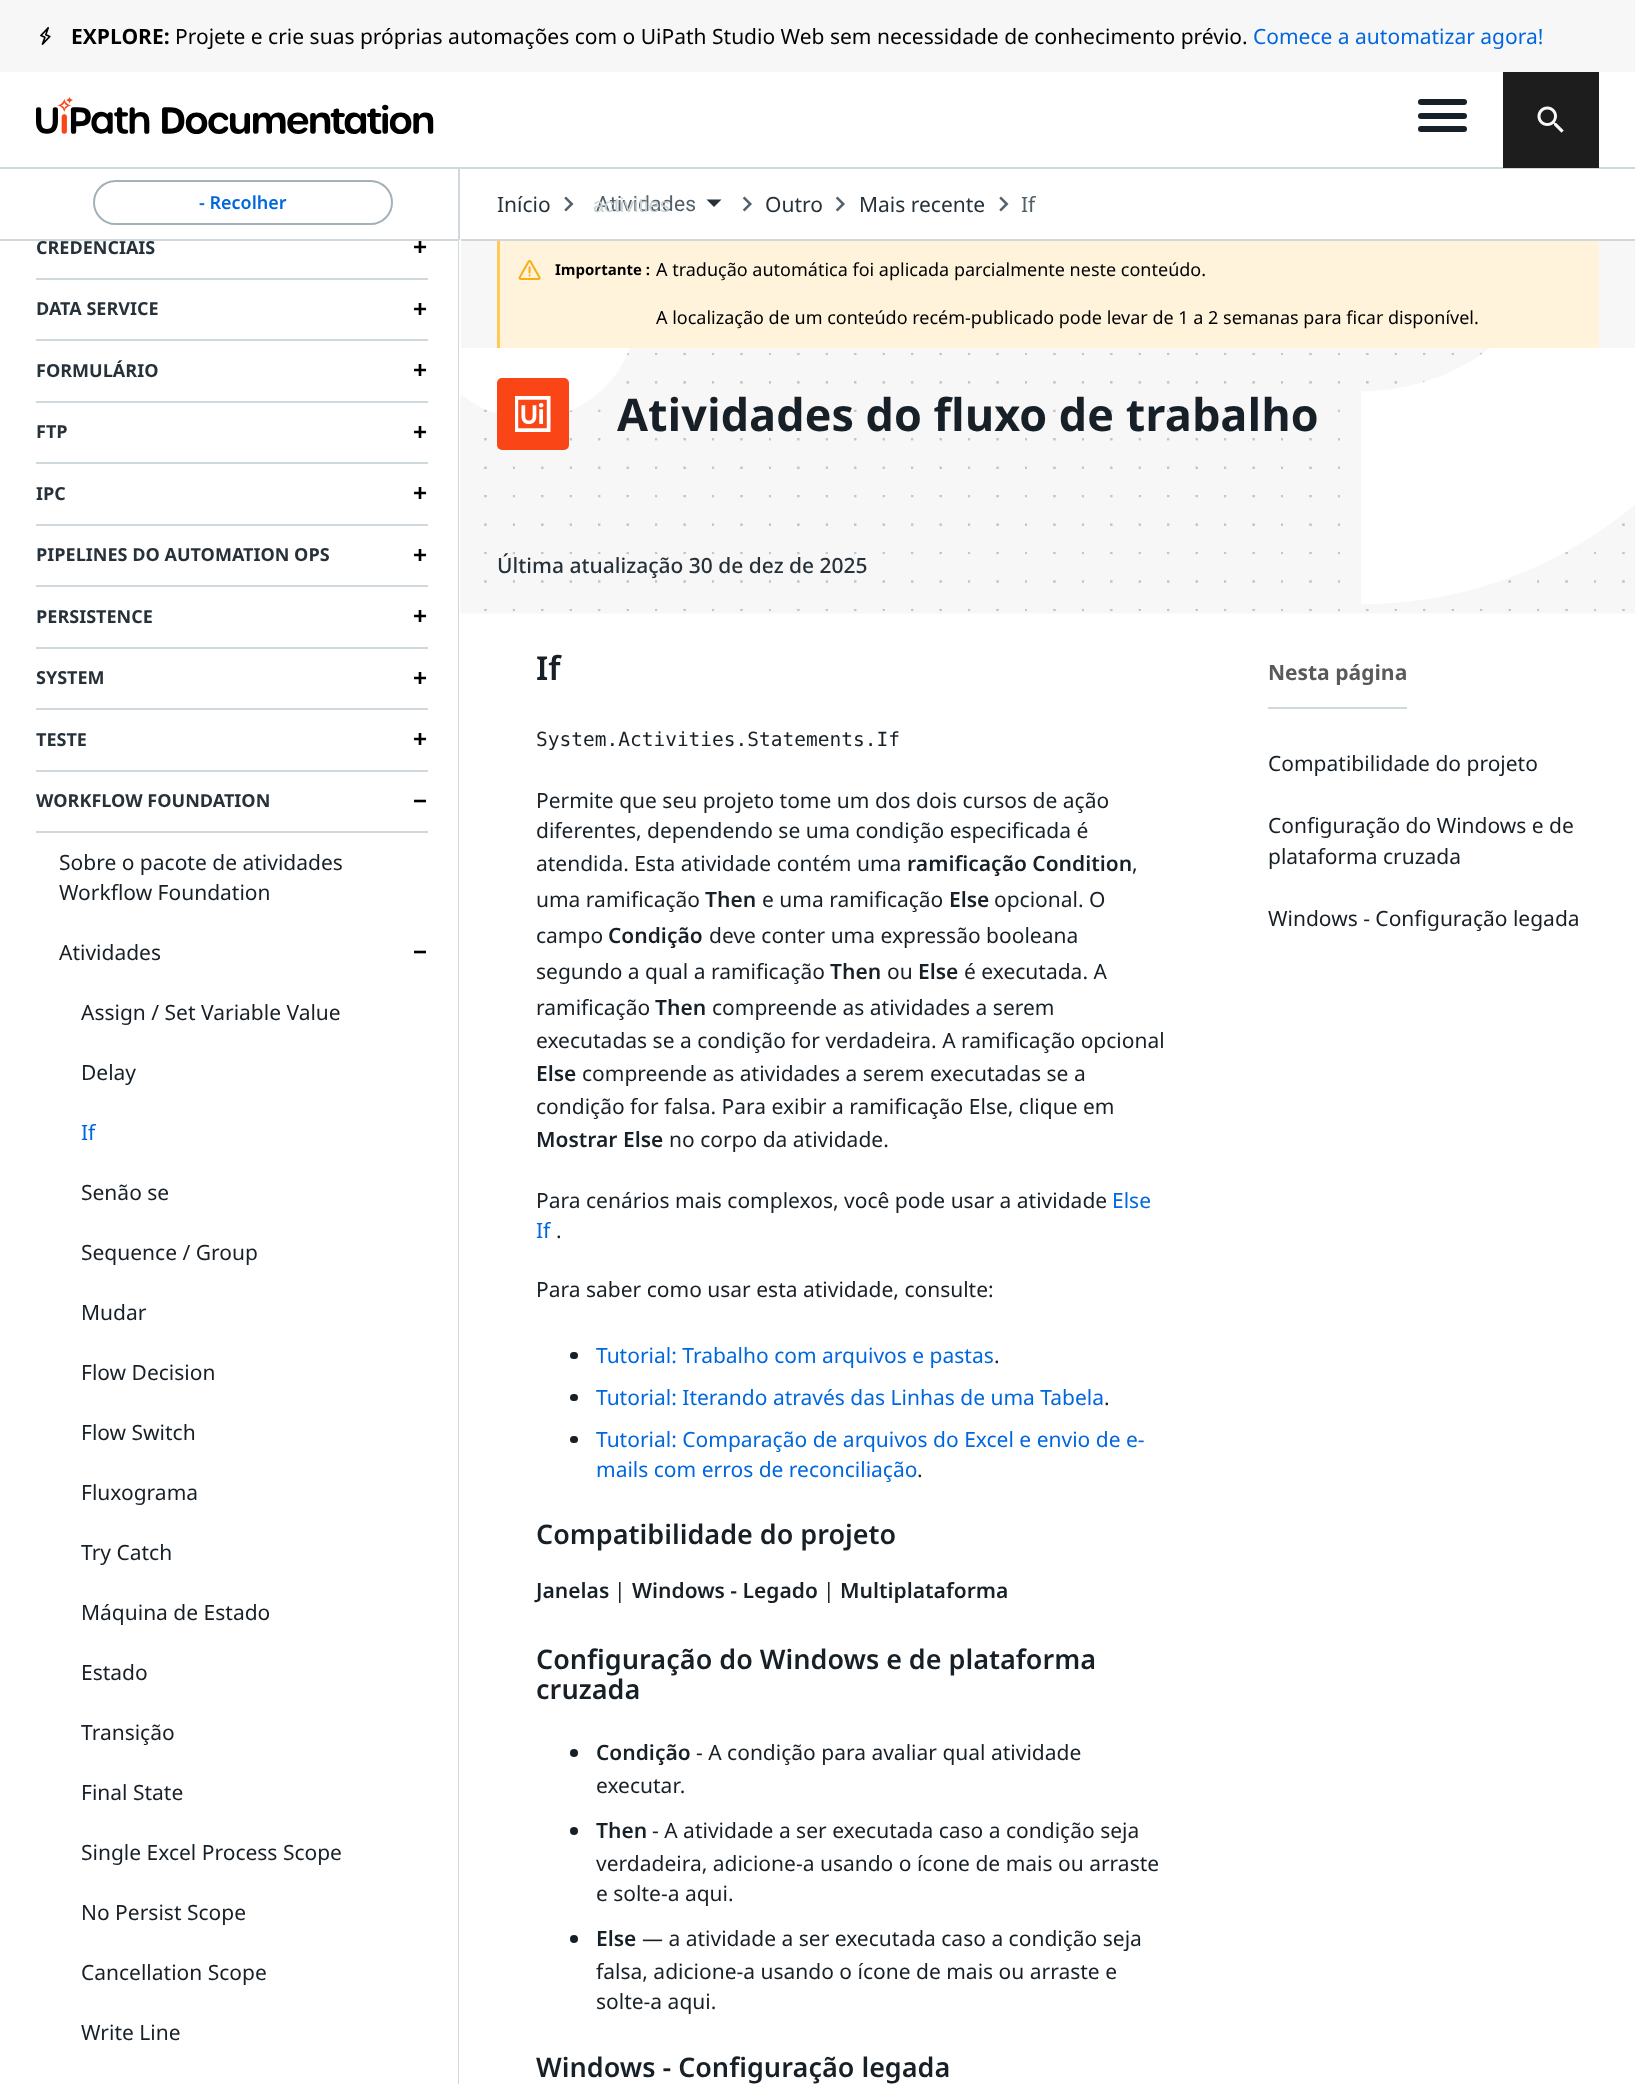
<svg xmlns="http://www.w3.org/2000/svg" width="1635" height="2084">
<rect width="100%" height="100%" fill="#fff"/>
<rect width="1635" height="72" fill="#f7f7f7"/>
<image x="40" y="27" width="11" height="18" href="media/1.png"/>
<text x="71" y="44" style="font-family:Noto Sans;font-size:21px;font-weight:bold;fill:#000">EXPLORE:</text>
<text x="175" y="44" style="font-family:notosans;font-size:21px;fill:#000">Projete e crie suas próprias automações com o UiPath Studio Web sem necessidade de conhecimento prévio.</text>
<text x="1253" y="44" style="font-family:notosans;font-size:21px;fill:#0067df">Comece a automatizar agora!</text>
<rect x="458" y="168" width="2" height="72" fill="#cfd8dd"/>
<rect y="167" width="1635" height="2" fill="#cfd8dd"/>
<image x="36" y="96" width="398" height="38" href="media/2.png"/>
<rect x="1418" y="99" width="49" height="6" rx="3" fill="#182027"/>
<rect x="1418" y="113" width="49" height="6" rx="3" fill="#182027"/>
<rect x="1418" y="126" width="49" height="6" rx="3" fill="#182027"/>
<rect x="1503" y="72" width="96" height="96" fill="#1d1d1e"/>
<image x="1537" y="106" width="27" height="27" href="media/3.png"/>
<rect x="458" y="240" width="1" height="1844" fill="#cfd8dd"/>
<text x="413" y="255" style="font-family:Liberation Sans;font-size:24px;font-weight:bold;fill:#000">+</text>
<rect y="239" width="459" height="2" fill="#cfd8dd"/>
<rect x="94" y="181" width="298" height="43" rx="21.5" fill="none" stroke="#a4b1b8" stroke-width="2"/>
<text x="199" y="209" style="font-family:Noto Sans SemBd;font-size:18px;font-weight:600;fill:#0067df">- Recolher</text>
<rect x="36" y="278" width="392" height="2" fill="#cfd8dd"/>
<text x="36" y="254" style="font-family:Noto Sans;font-size:18px;font-weight:bold;fill:#273139">CREDENCIAIS</text>
<rect x="36" y="339" width="392" height="2" fill="#cfd8dd"/>
<text x="36" y="315" style="font-family:Noto Sans;font-size:18px;font-weight:bold;fill:#273139">DATA SERVICE</text>
<text x="413" y="317" style="font-family:Liberation Sans;font-size:24px;font-weight:bold;fill:#000">+</text>
<rect x="36" y="401" width="392" height="2" fill="#cfd8dd"/>
<text x="36" y="377" style="font-family:Noto Sans;font-size:18px;font-weight:bold;fill:#273139">FORMULÁRIO</text>
<text x="413" y="378" style="font-family:Liberation Sans;font-size:24px;font-weight:bold;fill:#000">+</text>
<rect x="36" y="462" width="392" height="2" fill="#cfd8dd"/>
<text x="36" y="438" style="font-family:Noto Sans;font-size:18px;font-weight:bold;fill:#273139">FTP</text>
<text x="413" y="440" style="font-family:Liberation Sans;font-size:24px;font-weight:bold;fill:#000">+</text>
<rect x="36" y="524" width="392" height="2" fill="#cfd8dd"/>
<text x="36" y="500" style="font-family:Noto Sans;font-size:18px;font-weight:bold;fill:#273139">IPC</text>
<text x="413" y="501" style="font-family:Liberation Sans;font-size:24px;font-weight:bold;fill:#000">+</text>
<rect x="36" y="585" width="392" height="2" fill="#cfd8dd"/>
<text x="36" y="561" style="font-family:Noto Sans;font-size:18px;font-weight:bold;fill:#273139">PIPELINES DO AUTOMATION OPS</text>
<text x="413" y="563" style="font-family:Liberation Sans;font-size:24px;font-weight:bold;fill:#000">+</text>
<rect x="36" y="647" width="392" height="2" fill="#cfd8dd"/>
<text x="36" y="623" style="font-family:Noto Sans;font-size:18px;font-weight:bold;fill:#273139">PERSISTENCE</text>
<text x="413" y="624" style="font-family:Liberation Sans;font-size:24px;font-weight:bold;fill:#000">+</text>
<rect x="36" y="708" width="392" height="2" fill="#cfd8dd"/>
<text x="36" y="684" style="font-family:Noto Sans;font-size:18px;font-weight:bold;fill:#273139">SYSTEM</text>
<text x="413" y="686" style="font-family:Liberation Sans;font-size:24px;font-weight:bold;fill:#000">+</text>
<rect x="36" y="770" width="392" height="2" fill="#cfd8dd"/>
<text x="36" y="746" style="font-family:Noto Sans;font-size:18px;font-weight:bold;fill:#273139">TESTE</text>
<text x="413" y="747" style="font-family:Liberation Sans;font-size:24px;font-weight:bold;fill:#000">+</text>
<rect x="36" y="831" width="392" height="2" fill="#cfd8dd"/>
<text x="36" y="807" style="font-family:Noto Sans;font-size:18px;font-weight:bold;fill:#273139">WORKFLOW FOUNDATION</text>
<text x="413" y="809" style="font-family:Liberation Sans;font-size:24px;font-weight:bold;fill:#000">−</text>
<text x="59" y="870" style="font-family:notosans;font-size:21px;fill:#182027">Sobre o pacote de atividades</text>
<text x="59" y="900" style="font-family:notosans;font-size:21px;fill:#182027">Workflow Foundation</text>
<text x="59" y="960" style="font-family:notosans;font-size:21px;fill:#182027">Atividades</text>
<text x="413" y="960" style="font-family:Liberation Sans;font-size:24px;font-weight:bold;fill:#000">−</text>
<text x="81" y="1020" style="font-family:notosans;font-size:21px;fill:#182027">Assign / Set Variable Value</text>
<text x="81" y="1080" style="font-family:notosans;font-size:21px;fill:#182027">Delay</text>
<text x="81" y="1140" style="font-family:notosans;font-size:21px;fill:#0067df">If</text>
<text x="81" y="1200" style="font-family:notosans;font-size:21px;fill:#182027">Senão se</text>
<text x="81" y="1260" style="font-family:notosans;font-size:21px;fill:#182027">Sequence / Group</text>
<text x="81" y="1320" style="font-family:notosans;font-size:21px;fill:#182027">Mudar</text>
<text x="81" y="1380" style="font-family:notosans;font-size:21px;fill:#182027">Flow Decision</text>
<text x="81" y="1440" style="font-family:notosans;font-size:21px;fill:#182027">Flow Switch</text>
<text x="81" y="1500" style="font-family:notosans;font-size:21px;fill:#182027">Fluxograma</text>
<text x="81" y="1560" style="font-family:notosans;font-size:21px;fill:#182027">Try Catch</text>
<text x="81" y="1620" style="font-family:notosans;font-size:21px;fill:#182027">Máquina de Estado</text>
<text x="81" y="1680" style="font-family:notosans;font-size:21px;fill:#182027">Estado</text>
<text x="81" y="1740" style="font-family:notosans;font-size:21px;fill:#182027">Transição</text>
<text x="81" y="1800" style="font-family:notosans;font-size:21px;fill:#182027">Final State</text>
<text x="81" y="1860" style="font-family:notosans;font-size:21px;fill:#182027">Single Excel Process Scope</text>
<text x="81" y="1920" style="font-family:notosans;font-size:21px;fill:#182027">No Persist Scope</text>
<text x="81" y="1980" style="font-family:notosans;font-size:21px;fill:#182027">Cancellation Scope</text>
<text x="81" y="2040" style="font-family:notosans;font-size:21px;fill:#182027">Write Line</text>
<rect x="461" y="241" width="1174" height="107" fill="#f7f7f7"/>
<rect x="497" y="240" width="3" height="108" fill="#ffca55"/>
<rect x="461" y="239" width="1174" height="2" fill="#cfd8dd"/>
<text x="497" y="212" style="font-family:notosans;font-size:21px;fill:#273139">Início</text>
<image x="564" y="196" width="10" height="16" href="media/4.png"/>
<text x="596" y="211" style="font-family:Roboto;font-size:21px;letter-spacing:0.25px;fill:#526069">Atividades</text>
<text x="593" y="212" style="font-family:Liberation Sans;font-size:20px;fill:#ccd1d3">activities</text>
<path d="M706.5 199.5l7.5 7.5l7.5-7.5z" fill="#273139"/>
<image x="742" y="196" width="10" height="16" href="media/5.png"/>
<text x="765" y="212" style="font-family:notosans;font-size:21px;fill:#273139">Outro</text>
<image x="835" y="196" width="10" height="16" href="media/5.png"/>
<text x="859" y="212" style="font-family:notosans;font-size:21px;fill:#273139">Mais recente</text>
<image x="999" y="196" width="10" height="16" href="media/4.png"/>
<text x="1021" y="212" style="font-family:notosans;font-size:21px;fill:#526069">If</text>
<rect x="500" y="241" width="1099" height="107" fill="#fff3db"/>
<image x="518" y="260" width="23" height="20" href="media/6.png"/>
<text x="555" y="275" style="font-family:Noto Sans;font-size:15px;font-weight:bold;fill:#000">Importante :</text>
<text x="656" y="276" style="font-family:notosans;font-size:18px;fill:#000">A tradução automática foi aplicada parcialmente neste conteúdo.</text>
<text x="656" y="324" style="font-family:notosans;font-size:18px;fill:#000">A localização de um conteúdo recém-publicado pode levar de 1 a 2 semanas para ficar disponível.</text>
<image x="460" y="348" width="1175" height="266" href="media/7.png"/>
<rect x="497" y="378" width="72" height="72" rx="5" fill="#fa4616"/>
<image x="515" y="396" width="36" height="36" href="media/8.png"/>
<text x="617" y="431" style="font-family:Noto Sans;font-size:45px;font-weight:bold;fill:#182027">Atividades do fluxo de trabalho</text>
<text x="497" y="573" style="font-family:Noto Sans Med;font-size:21px;font-weight:500;fill:#273139">Última atualização 30 de dez de 2025</text>
<text x="536" y="680" style="font-family:Noto Sans SemBd;font-size:33px;font-weight:600;fill:#182027">If</text>
<text x="536" y="746" style="font-family:DejaVu Sans Mono;font-size:19.5px;fill:#182027">System.Activities.Statements.If</text>
<text x="536" y="808" style="font-family:notosans;font-size:21px;fill:#182027">Permite que seu projeto tome um dos dois cursos de ação</text>
<text x="536" y="838" style="font-family:notosans;font-size:21px;fill:#182027">diferentes, dependendo se uma condição especificada é</text>
<text x="536" y="871" style="font-family:notosans;font-size:21px;fill:#182027">atendida. Esta atividade contém uma</text>
<text x="907" y="871" style="font-family:Noto Sans SemBd;font-size:21px;font-weight:600;fill:#182027">ramificação Condition</text>
<text x="1132" y="871" style="font-family:notosans;font-size:21px;fill:#182027">,</text>
<text x="536" y="907" style="font-family:notosans;font-size:21px;fill:#182027">uma ramificação</text>
<text x="705" y="907" style="font-family:Noto Sans SemBd;font-size:21px;font-weight:600;fill:#182027">Then</text>
<text x="762" y="907" style="font-family:notosans;font-size:21px;fill:#182027">e uma ramificação</text>
<text x="949" y="907" style="font-family:Noto Sans SemBd;font-size:21px;font-weight:600;fill:#182027">Else</text>
<text x="994" y="907" style="font-family:notosans;font-size:21px;fill:#182027">opcional. O</text>
<text x="536" y="943" style="font-family:notosans;font-size:21px;fill:#182027">campo</text>
<text x="608" y="943" style="font-family:Noto Sans SemBd;font-size:21px;font-weight:600;fill:#182027">Condição</text>
<text x="709" y="943" style="font-family:notosans;font-size:21px;fill:#182027">deve conter uma expressão booleana</text>
<text x="536" y="979" style="font-family:notosans;font-size:21px;fill:#182027">segundo a qual a ramificação</text>
<text x="830" y="979" style="font-family:Noto Sans SemBd;font-size:21px;font-weight:600;fill:#182027">Then</text>
<text x="887" y="979" style="font-family:notosans;font-size:21px;fill:#182027">ou</text>
<text x="918" y="979" style="font-family:Noto Sans SemBd;font-size:21px;font-weight:600;fill:#182027">Else</text>
<text x="964" y="979" style="font-family:notosans;font-size:21px;fill:#182027">é executada. A</text>
<text x="536" y="1015" style="font-family:notosans;font-size:21px;fill:#182027">ramificação</text>
<text x="655" y="1015" style="font-family:Noto Sans SemBd;font-size:21px;font-weight:600;fill:#182027">Then</text>
<text x="712" y="1015" style="font-family:notosans;font-size:21px;fill:#182027">compreende as atividades a serem</text>
<text x="536" y="1048" style="font-family:notosans;font-size:21px;fill:#182027">executadas se a condição for verdadeira. A ramificação opcional</text>
<text x="536" y="1081" style="font-family:Noto Sans SemBd;font-size:21px;font-weight:600;fill:#182027">Else</text>
<text x="582" y="1081" style="font-family:notosans;font-size:21px;fill:#182027">compreende as atividades a serem executadas se a</text>
<text x="536" y="1114" style="font-family:notosans;font-size:21px;fill:#182027">condição for falsa. Para exibir a ramificação Else, clique em</text>
<text x="536" y="1147" style="font-family:Noto Sans SemBd;font-size:21px;font-weight:600;fill:#182027">Mostrar Else</text>
<text x="669" y="1147" style="font-family:notosans;font-size:21px;fill:#182027">no corpo da atividade.</text>
<text x="536" y="1208" style="font-family:notosans;font-size:21px;fill:#182027">Para cenários mais complexos, você pode usar a atividade</text>
<text x="1112" y="1208" style="font-family:notosans;font-size:21px;fill:#0067df">Else</text>
<text x="536" y="1238" style="font-family:notosans;font-size:21px;fill:#0067df">If</text>
<text x="556" y="1238" style="font-family:notosans;font-size:21px;fill:#182027">.</text>
<text x="536" y="1297" style="font-family:notosans;font-size:21px;fill:#182027">Para saber como usar esta atividade, consulte:</text>
<rect x="570" y="1352" width="8" height="7" rx="3.5" fill="#182027"/>
<text x="596" y="1363" style="font-family:notosans;font-size:21px;fill:#0067df">Tutorial: Trabalho com arquivos e pastas</text>
<text x="994" y="1363" style="font-family:notosans;font-size:21px;fill:#182027">.</text>
<rect x="570" y="1394" width="8" height="7" rx="3.5" fill="#182027"/>
<text x="596" y="1405" style="font-family:notosans;font-size:21px;fill:#0067df">Tutorial: Iterando através das Linhas de uma Tabela</text>
<text x="1104" y="1405" style="font-family:notosans;font-size:21px;fill:#182027">.</text>
<rect x="570" y="1436" width="8" height="7" rx="3.5" fill="#182027"/>
<text x="596" y="1447" style="font-family:notosans;font-size:21px;fill:#0067df">Tutorial: Comparação de arquivos do Excel e envio de e-</text>
<text x="596" y="1477" style="font-family:notosans;font-size:21px;fill:#0067df">mails com erros de reconciliação</text>
<text x="917" y="1477" style="font-family:notosans;font-size:21px;fill:#182027">.</text>
<text x="536" y="1544" style="font-family:Noto Sans SemBd;font-size:27px;font-weight:600;fill:#182027">Compatibilidade do projeto</text>
<text x="536" y="1598" style="font-family:Noto Sans SemBd;font-size:21px;font-weight:600;fill:#182027">Janelas</text>
<text x="614" y="1598" style="font-family:notosans;font-size:21px;fill:#182027">|</text>
<text x="632" y="1598" style="font-family:Noto Sans SemBd;font-size:21px;font-weight:600;fill:#182027">Windows - Legado</text>
<text x="823" y="1598" style="font-family:notosans;font-size:21px;fill:#182027">|</text>
<text x="840" y="1598" style="font-family:Noto Sans SemBd;font-size:21px;font-weight:600;fill:#182027">Multiplataforma</text>
<text x="536" y="1669" style="font-family:Noto Sans SemBd;font-size:27px;font-weight:600;fill:#182027">Configuração do Windows e de plataforma</text>
<text x="536" y="1699" style="font-family:Noto Sans SemBd;font-size:27px;font-weight:600;fill:#182027">cruzada</text>
<circle cx="574" cy="1753" r="4" fill="#182027"/>
<text x="596" y="1760" style="font-family:Noto Sans SemBd;font-size:21px;font-weight:600;fill:#182027">Condição</text>
<text x="696" y="1760" style="font-family:notosans;font-size:21px;fill:#182027">- A condição para avaliar qual atividade</text>
<text x="596" y="1793" style="font-family:notosans;font-size:21px;fill:#182027">executar.</text>
<circle cx="574" cy="1831" r="4" fill="#182027"/>
<text x="596" y="1838" style="font-family:Noto Sans SemBd;font-size:21px;font-weight:600;fill:#182027">Then</text>
<text x="652" y="1838" style="font-family:notosans;font-size:21px;fill:#182027">- A atividade a ser executada caso a condição seja</text>
<text x="596" y="1871" style="font-family:notosans;font-size:21px;fill:#182027">verdadeira, adicione-a usando o ícone de mais ou arraste</text>
<text x="596" y="1901" style="font-family:notosans;font-size:21px;fill:#182027">e solte-a aqui.</text>
<circle cx="574" cy="1939" r="4" fill="#182027"/>
<text x="596" y="1946" style="font-family:Noto Sans SemBd;font-size:21px;font-weight:600;fill:#182027">Else</text>
<text x="642" y="1946" style="font-family:notosans;font-size:21px;fill:#182027">— a atividade a ser executada caso a condição seja</text>
<text x="596" y="1979" style="font-family:notosans;font-size:21px;fill:#182027">falsa, adicione-a usando o ícone de mais ou arraste e</text>
<text x="596" y="2009" style="font-family:notosans;font-size:21px;fill:#182027">solte-a aqui.</text>
<text x="536" y="2077" style="font-family:Noto Sans SemBd;font-size:27px;font-weight:600;fill:#182027">Windows - Configuração legada</text>
<rect x="1268" y="707" width="139" height="2" fill="#cfd8dd"/>
<text x="1268" y="680" style="font-family:Noto Sans;font-size:21px;font-weight:bold;fill:#595a5c">Nesta página</text>
<text x="1268" y="771" style="font-family:notosans;font-size:21px;fill:#182027">Compatibilidade do projeto</text>
<text x="1268" y="833" style="font-family:notosans;font-size:21px;fill:#182027">Configuração do Windows e de</text>
<text x="1268" y="864" style="font-family:notosans;font-size:21px;fill:#182027">plataforma cruzada</text>
<text x="1268" y="926" style="font-family:notosans;font-size:21px;fill:#182027">Windows - Configuração legada</text>
</svg>
